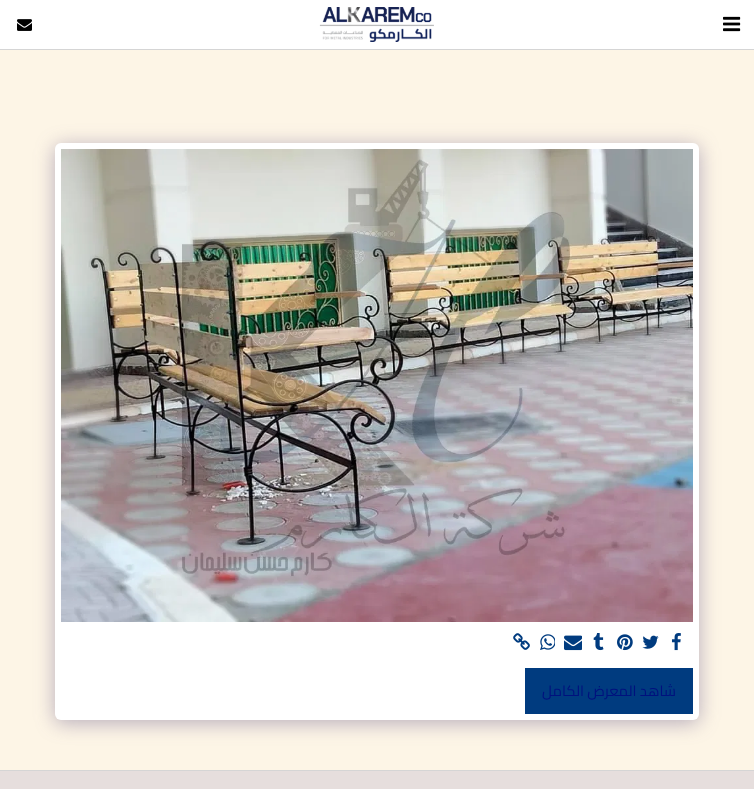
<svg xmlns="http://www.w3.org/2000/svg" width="754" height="789">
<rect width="100%" height="100%" fill="#fdf5e6"/>
<rect width="754" height="49" fill="#fff"/>
<rect y="49" width="754" height="1" fill="#d5d5d5"/>
<image x="723" y="16" width="18" height="16" href="media/1.png"/>
<image x="319" y="7" width="115" height="35" href="media/2.png"/>
<image x="17" y="19" width="15" height="12" href="media/3.png"/>
<rect x="55" y="146" width="644" height="577" rx="6" fill="#4d3f7a66" filter="blur(10px)"/>
<rect x="55" y="143" width="644" height="577" rx="6" fill="#fff"/>
<image x="61" y="149" width="632" height="473" href="media/4.png"/>
<image x="671" y="633" width="10" height="18" href="media/5.png"/>
<image x="642" y="635" width="17" height="14" href="media/6.png"/>
<image x="617" y="634" width="16" height="17" href="media/7.png"/>
<image x="593" y="633" width="11" height="18" href="media/8.png"/>
<image x="564" y="635" width="18" height="16" href="media/9.png"/>
<image x="540" y="634" width="15" height="16" href="media/10.png"/>
<image x="513" y="633" width="17" height="17" href="media/11.png"/>
<rect x="525" y="668" width="168" height="46" fill="#003b7f"/>
<text x="676" y="696" style="font-family:Cairo;font-size:14.75px;direction:rtl;fill:#00117e">شاهد المعرض الكامل</text>
<rect y="771" width="754" height="18" fill="#e6dedd"/>
<rect y="770" width="754" height="1" fill="#d5d5d5"/>
</svg>
